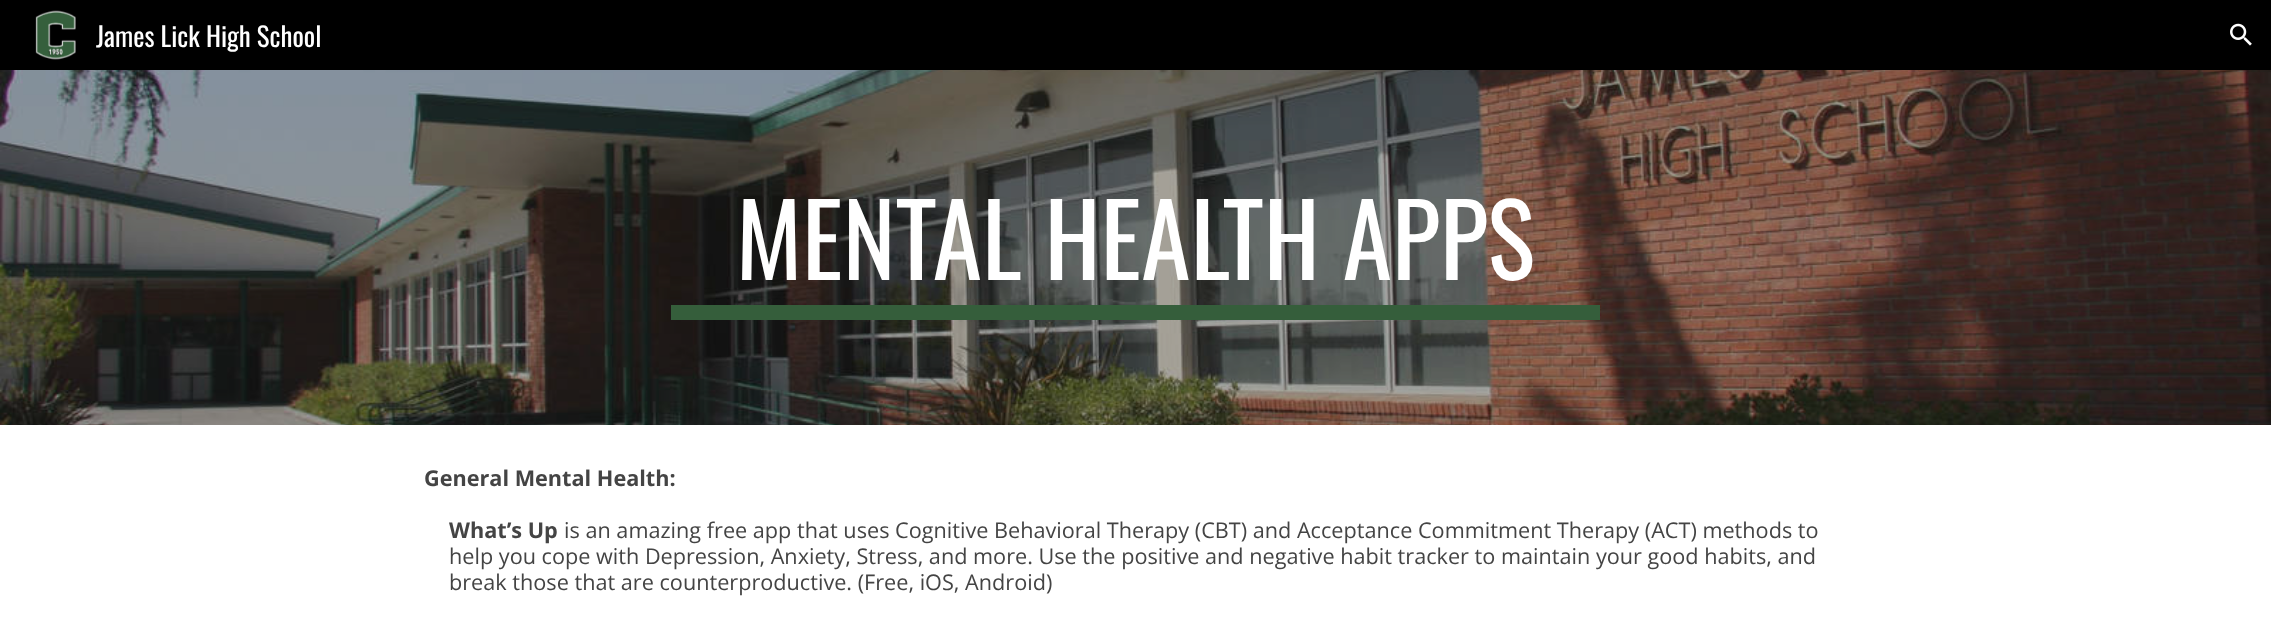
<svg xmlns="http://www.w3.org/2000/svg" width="2271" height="644">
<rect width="100%" height="100%" fill="#fff"/>
<rect width="2271" height="70" fill="#000"/>
<image x="35" y="10" width="41" height="50" href="media/1.png"/>
<text x="96" y="47" style="font-family:Oswald;font-size:26.75px;fill:#fff">James Lick High School</text>
<image x="2230" y="23" width="22" height="23" href="media/2.png"/>
<image x="0" y="70" width="2271" height="355" href="media/3.png"/>
<text x="736" y="280" style="font-family:Oswald;font-size:100px;fill:#fff">MENTAL HEALTH APPS</text>
<rect x="671" y="305" width="929" height="15" fill="#355e3b"/>
<text x="424" y="486" style="font-family:Open Sans;font-size:21.67px;font-weight:bold;fill:#444">General Mental Health:</text>
<text x="449" y="538" style="font-family:Open Sans;font-size:21.67px;font-weight:bold;fill:#444">What’s Up</text>
<text x="564" y="538" style="font-family:Open Sans;font-size:21.67px;fill:#444">is an amazing free app that uses Cognitive Behavioral Therapy (CBT) and Acceptance Commitment Therapy (ACT) methods to</text>
<text x="449" y="564" style="font-family:Open Sans;font-size:21.67px;fill:#444">help you cope with Depression, Anxiety, Stress, and more. Use the positive and negative habit tracker to maintain your good habits, and</text>
<text x="449" y="590" style="font-family:Open Sans;font-size:21.67px;fill:#444">break those that are counterproductive. (Free, iOS, Android)</text>
</svg>
